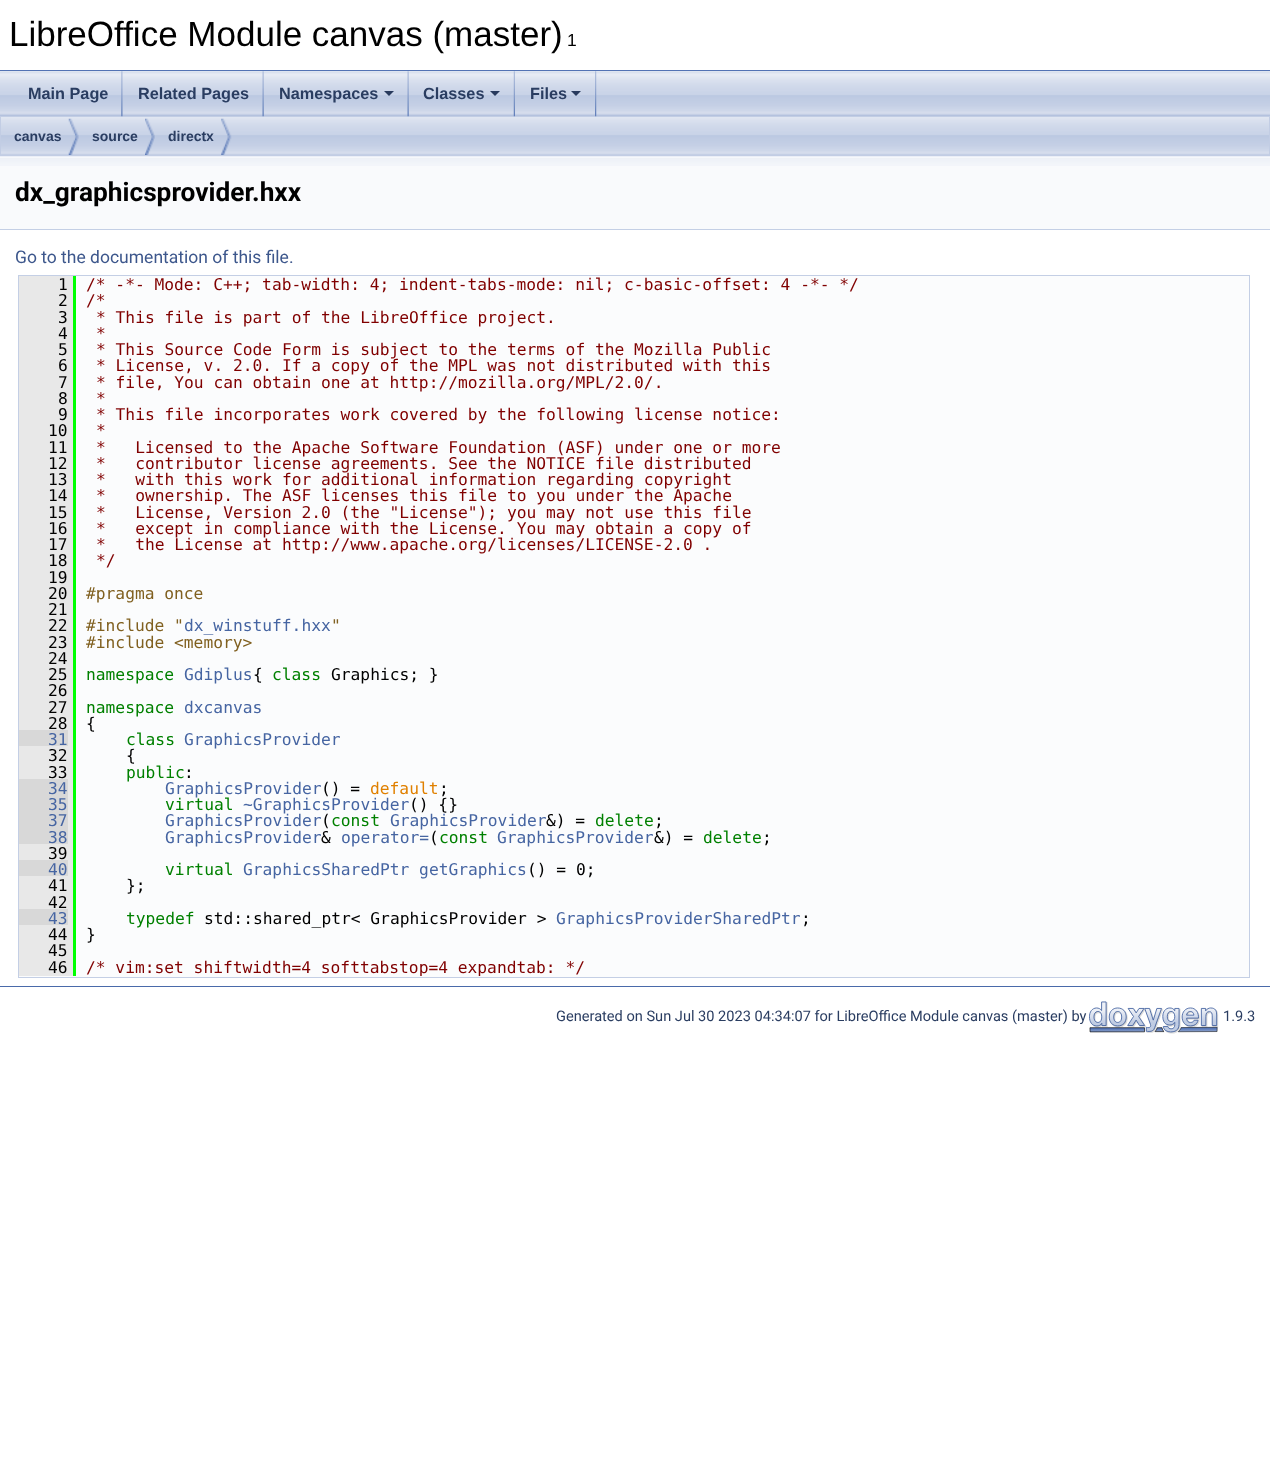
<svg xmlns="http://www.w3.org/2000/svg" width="1270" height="1467">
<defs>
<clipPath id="clip1"><rect x="19" y="276" width="1230" height="700"/></clipPath>
</defs>
<rect width="100%" height="100%" fill="#fff"/>
<rect y="70" width="1270" height="1" fill="#5373b4"/>
<text x="9" y="46" style="font-family:Liberation Sans;font-size:35px;fill:#000">LibreOffice Module canvas (master)</text>
<text x="567" y="46" style="font-family:Liberation Sans;font-size:17.5px;fill:#000">1</text>
<image x="0" y="71" width="1270" height="45" href="media/1.png"/>
<rect y="156" width="1270" height="73" fill="#f9fafc"/>
<image x="0" y="156" width="1270" height="10" href="media/10.png"/>
<image x="0" y="117" width="1270" height="40" href="media/6.png"/>
<rect x="0.5" y="116.5" width="1269" height="39" fill="none" stroke="#c2cde4"/>
<image x="121" y="71" width="2" height="46" href="media/2.png"/>
<text x="28" y="99" style="font-family:Liberation Sans;font-size:16.25px;font-weight:bold;fill:#2a3d61">Main Page</text>
<image x="262" y="71" width="2" height="46" href="media/3.png"/>
<text x="138" y="99" style="font-family:Liberation Sans;font-size:16.25px;font-weight:bold;fill:#2a3d61">Related Pages</text>
<image x="407" y="71" width="2" height="46" href="media/3.png"/>
<text x="279" y="99" style="font-family:Liberation Sans;font-size:16.25px;font-weight:bold;fill:#2a3d61">Namespaces</text>
<path d="M384 91h10l-5 5z" fill="#283a5d"/>
<image x="513" y="71" width="2" height="46" href="media/4.png"/>
<text x="423" y="99" style="font-family:Liberation Sans;font-size:16.25px;font-weight:bold;fill:#2a3d61">Classes</text>
<path d="M490 91h10l-5 5z" fill="#283a5d"/>
<image x="595" y="71" width="2" height="46" href="media/5.png"/>
<text x="530" y="99" style="font-family:Liberation Sans;font-size:16.25px;font-weight:bold;fill:#2a3d61">Files</text>
<path d="M571 91h10l-5 5z" fill="#283a5d"/>
<image x="68" y="118" width="11" height="37" href="media/7.png"/>
<text x="14" y="141" style="font-family:Liberation Sans;font-size:14px;font-weight:bold;fill:#2a3d61">canvas</text>
<image x="145" y="118" width="10" height="37" href="media/8.png"/>
<text x="92" y="141" style="font-family:Liberation Sans;font-size:14px;font-weight:bold;fill:#2a3d61">source</text>
<image x="221" y="118" width="11" height="37" href="media/9.png"/>
<text x="168" y="141" style="font-family:Liberation Sans;font-size:14px;font-weight:bold;fill:#2a3d61">directx</text>
<rect y="229" width="1270" height="1" fill="#c4cfe5"/>
<text x="15" y="201" style="font-family:Roboto;font-size:26.25px;font-weight:bold;fill:#000">dx_graphicsprovider.hxx</text>
<text x="15" y="263" style="font-family:Roboto;font-size:17.5px;fill:#3d578c">Go to the documentation of this file.</text>
<rect x="18.5" y="275.5" width="1231" height="702" fill="#fbfcfd" stroke="#c4cfe5"/>
<rect x="19" y="276" width="54" height="454" fill="#e8e8e8"/>
<text x="58" y="290" style="font-family:DejaVu Sans Mono;font-size:16.25px;fill:#000">1</text>
<rect x="73" y="276" width="3" height="700" fill="#0f0"/>
<text x="86" y="290" style="font-family:DejaVu Sans Mono;font-size:16.25px;fill:#800000">/* -*- Mode: C++; tab-width: 4; indent-tabs-mode: nil; c-basic-offset: 4 -*- */</text>
<text x="58" y="306" style="font-family:DejaVu Sans Mono;font-size:16.25px;fill:#000">2</text>
<text x="86" y="306" style="font-family:DejaVu Sans Mono;font-size:16.25px;fill:#800000">/*</text>
<text x="58" y="323" style="font-family:DejaVu Sans Mono;font-size:16.25px;fill:#000">3</text>
<text x="96" y="323" style="font-family:DejaVu Sans Mono;font-size:16.25px;fill:#800000">* This file is part of the LibreOffice project.</text>
<text x="58" y="339" style="font-family:DejaVu Sans Mono;font-size:16.25px;fill:#000">4</text>
<text x="96" y="339" style="font-family:DejaVu Sans Mono;font-size:16.25px;fill:#800000">*</text>
<text x="58" y="355" style="font-family:DejaVu Sans Mono;font-size:16.25px;fill:#000">5</text>
<text x="96" y="355" style="font-family:DejaVu Sans Mono;font-size:16.25px;fill:#800000">* This Source Code Form is subject to the terms of the Mozilla Public</text>
<text x="58" y="371" style="font-family:DejaVu Sans Mono;font-size:16.25px;fill:#000">6</text>
<text x="96" y="371" style="font-family:DejaVu Sans Mono;font-size:16.25px;fill:#800000">* License, v. 2.0. If a copy of the MPL was not distributed with this</text>
<text x="58" y="388" style="font-family:DejaVu Sans Mono;font-size:16.25px;fill:#000">7</text>
<text x="96" y="388" style="font-family:DejaVu Sans Mono;font-size:16.25px;fill:#800000">* file, You can obtain one at http://mozilla.org/MPL/2.0/.</text>
<text x="58" y="404" style="font-family:DejaVu Sans Mono;font-size:16.25px;fill:#000">8</text>
<text x="96" y="404" style="font-family:DejaVu Sans Mono;font-size:16.25px;fill:#800000">*</text>
<text x="58" y="420" style="font-family:DejaVu Sans Mono;font-size:16.25px;fill:#000">9</text>
<text x="96" y="420" style="font-family:DejaVu Sans Mono;font-size:16.25px;fill:#800000">* This file incorporates work covered by the following license notice:</text>
<text x="48" y="436" style="font-family:DejaVu Sans Mono;font-size:16.25px;fill:#000">10</text>
<text x="96" y="436" style="font-family:DejaVu Sans Mono;font-size:16.25px;fill:#800000">*</text>
<text x="48" y="453" style="font-family:DejaVu Sans Mono;font-size:16.25px;fill:#000">11</text>
<text x="96" y="453" style="font-family:DejaVu Sans Mono;font-size:16.25px;fill:#800000" xml:space="preserve">*   Licensed to the Apache Software Foundation (ASF) under one or more</text>
<text x="48" y="469" style="font-family:DejaVu Sans Mono;font-size:16.25px;fill:#000">12</text>
<text x="96" y="469" style="font-family:DejaVu Sans Mono;font-size:16.25px;fill:#800000" xml:space="preserve">*   contributor license agreements. See the NOTICE file distributed</text>
<text x="48" y="485" style="font-family:DejaVu Sans Mono;font-size:16.25px;fill:#000">13</text>
<text x="96" y="485" style="font-family:DejaVu Sans Mono;font-size:16.25px;fill:#800000" xml:space="preserve">*   with this work for additional information regarding copyright</text>
<text x="48" y="501" style="font-family:DejaVu Sans Mono;font-size:16.25px;fill:#000">14</text>
<text x="96" y="501" style="font-family:DejaVu Sans Mono;font-size:16.25px;fill:#800000" xml:space="preserve">*   ownership. The ASF licenses this file to you under the Apache</text>
<text x="48" y="518" style="font-family:DejaVu Sans Mono;font-size:16.25px;fill:#000">15</text>
<text x="96" y="518" style="font-family:DejaVu Sans Mono;font-size:16.25px;fill:#800000" xml:space="preserve">*   License, Version 2.0 (the "License"); you may not use this file</text>
<text x="48" y="534" style="font-family:DejaVu Sans Mono;font-size:16.25px;fill:#000">16</text>
<text x="96" y="534" style="font-family:DejaVu Sans Mono;font-size:16.25px;fill:#800000" xml:space="preserve">*   except in compliance with the License. You may obtain a copy of</text>
<text x="48" y="550" style="font-family:DejaVu Sans Mono;font-size:16.25px;fill:#000">17</text>
<text x="96" y="550" style="font-family:DejaVu Sans Mono;font-size:16.25px;fill:#800000" xml:space="preserve">*   the License at http://www.apache.org/licenses/LICENSE-2.0 .</text>
<text x="48" y="566" style="font-family:DejaVu Sans Mono;font-size:16.25px;fill:#000">18</text>
<text x="96" y="566" style="font-family:DejaVu Sans Mono;font-size:16.25px;fill:#800000">*/</text>
<text x="48" y="583" style="font-family:DejaVu Sans Mono;font-size:16.25px;fill:#000">19</text>
<text x="48" y="599" style="font-family:DejaVu Sans Mono;font-size:16.25px;fill:#000">20</text>
<text x="86" y="599" style="font-family:DejaVu Sans Mono;font-size:16.25px;fill:#806020">#pragma once</text>
<text x="48" y="615" style="font-family:DejaVu Sans Mono;font-size:16.25px;fill:#000">21</text>
<text x="48" y="631" style="font-family:DejaVu Sans Mono;font-size:16.25px;fill:#000">22</text>
<text x="86" y="631" style="font-family:DejaVu Sans Mono;font-size:16.25px;fill:#806020">#include "</text>
<text x="184" y="631" style="font-family:DejaVu Sans Mono;font-size:16.25px;fill:#4665a2">dx_winstuff.hxx</text>
<text x="331" y="631" style="font-family:DejaVu Sans Mono;font-size:16.25px;fill:#806020">"</text>
<text x="48" y="648" style="font-family:DejaVu Sans Mono;font-size:16.25px;fill:#000">23</text>
<text x="86" y="648" style="font-family:DejaVu Sans Mono;font-size:16.25px;fill:#806020">#include &lt;memory&gt;</text>
<text x="48" y="664" style="font-family:DejaVu Sans Mono;font-size:16.25px;fill:#000">24</text>
<text x="48" y="680" style="font-family:DejaVu Sans Mono;font-size:16.25px;fill:#000">25</text>
<text x="86" y="680" style="font-family:DejaVu Sans Mono;font-size:16.25px;fill:#008000">namespace</text>
<text x="184" y="680" style="font-family:DejaVu Sans Mono;font-size:16.25px;fill:#4665a2">Gdiplus</text>
<text x="253" y="680" style="font-family:DejaVu Sans Mono;font-size:16.25px;fill:#000">{</text>
<text x="272" y="680" style="font-family:DejaVu Sans Mono;font-size:16.25px;fill:#008000">class</text>
<text x="331" y="680" style="font-family:DejaVu Sans Mono;font-size:16.25px;fill:#000">Graphics; }</text>
<text x="48" y="696" style="font-family:DejaVu Sans Mono;font-size:16.25px;fill:#000">26</text>
<text x="48" y="713" style="font-family:DejaVu Sans Mono;font-size:16.25px;fill:#000">27</text>
<text x="86" y="713" style="font-family:DejaVu Sans Mono;font-size:16.25px;fill:#008000">namespace</text>
<text x="184" y="713" style="font-family:DejaVu Sans Mono;font-size:16.25px;fill:#4665a2">dxcanvas</text>
<text x="48" y="729" style="font-family:DejaVu Sans Mono;font-size:16.25px;fill:#000">28</text>
<text x="86" y="729" style="font-family:DejaVu Sans Mono;font-size:16.25px;fill:#000">{</text>
<rect x="19" y="730" width="49" height="16" fill="#d8d8d8"/>
<text x="48" y="745" style="font-family:DejaVu Sans Mono;font-size:16.25px;fill:#4665a2">31</text>
<rect x="68" y="730" width="5" height="16" fill="#e8e8e8"/>
<text x="126" y="745" style="font-family:DejaVu Sans Mono;font-size:16.25px;fill:#008000">class</text>
<text x="184" y="745" style="font-family:DejaVu Sans Mono;font-size:16.25px;fill:#4665a2">GraphicsProvider</text>
<rect x="19" y="746" width="54" height="33" fill="#e8e8e8"/>
<text x="48" y="761" style="font-family:DejaVu Sans Mono;font-size:16.25px;fill:#000">32</text>
<text x="126" y="761" style="font-family:DejaVu Sans Mono;font-size:16.25px;fill:#000">{</text>
<text x="48" y="778" style="font-family:DejaVu Sans Mono;font-size:16.25px;fill:#000">33</text>
<text x="126" y="778" style="font-family:DejaVu Sans Mono;font-size:16.25px;fill:#008000">public</text>
<text x="184" y="778" style="font-family:DejaVu Sans Mono;font-size:16.25px;fill:#000">:</text>
<rect x="19" y="779" width="49" height="65" fill="#d8d8d8"/>
<text x="48" y="794" style="font-family:DejaVu Sans Mono;font-size:16.25px;fill:#4665a2">34</text>
<rect x="68" y="779" width="5" height="65" fill="#e8e8e8"/>
<text x="165" y="794" style="font-family:DejaVu Sans Mono;font-size:16.25px;fill:#4665a2">GraphicsProvider</text>
<text x="321" y="794" style="font-family:DejaVu Sans Mono;font-size:16.25px;fill:#000">() =</text>
<text x="370" y="794" style="font-family:DejaVu Sans Mono;font-size:16.25px;fill:#e08000">default</text>
<text x="439" y="794" style="font-family:DejaVu Sans Mono;font-size:16.25px;fill:#000">;</text>
<text x="48" y="810" style="font-family:DejaVu Sans Mono;font-size:16.25px;fill:#4665a2">35</text>
<text x="165" y="810" style="font-family:DejaVu Sans Mono;font-size:16.25px;fill:#008000">virtual</text>
<text x="243" y="810" style="font-family:DejaVu Sans Mono;font-size:16.25px;fill:#4665a2">~GraphicsProvider</text>
<text x="409" y="810" style="font-family:DejaVu Sans Mono;font-size:16.25px;fill:#000">() {}</text>
<text x="48" y="826" style="font-family:DejaVu Sans Mono;font-size:16.25px;fill:#4665a2">37</text>
<text x="165" y="826" style="font-family:DejaVu Sans Mono;font-size:16.25px;fill:#4665a2">GraphicsProvider</text>
<text x="321" y="826" style="font-family:DejaVu Sans Mono;font-size:16.25px;fill:#000">(</text>
<text x="331" y="826" style="font-family:DejaVu Sans Mono;font-size:16.25px;fill:#008000">const</text>
<text x="390" y="826" style="font-family:DejaVu Sans Mono;font-size:16.25px;fill:#4665a2">GraphicsProvider</text>
<text x="546" y="826" style="font-family:DejaVu Sans Mono;font-size:16.25px;fill:#000">&amp;) =</text>
<text x="595" y="826" style="font-family:DejaVu Sans Mono;font-size:16.25px;fill:#008000">delete</text>
<text x="654" y="826" style="font-family:DejaVu Sans Mono;font-size:16.25px;fill:#000">;</text>
<text x="48" y="843" style="font-family:DejaVu Sans Mono;font-size:16.25px;fill:#4665a2">38</text>
<text x="165" y="843" style="font-family:DejaVu Sans Mono;font-size:16.25px;fill:#4665a2">GraphicsProvider</text>
<text x="321" y="843" style="font-family:DejaVu Sans Mono;font-size:16.25px;fill:#000">&amp;</text>
<text x="341" y="843" style="font-family:DejaVu Sans Mono;font-size:16.25px;fill:#4665a2">operator=</text>
<text x="429" y="843" style="font-family:DejaVu Sans Mono;font-size:16.25px;fill:#000">(</text>
<text x="439" y="843" style="font-family:DejaVu Sans Mono;font-size:16.25px;fill:#008000">const</text>
<text x="497" y="843" style="font-family:DejaVu Sans Mono;font-size:16.25px;fill:#4665a2">GraphicsProvider</text>
<text x="654" y="843" style="font-family:DejaVu Sans Mono;font-size:16.25px;fill:#000">&amp;) =</text>
<text x="703" y="843" style="font-family:DejaVu Sans Mono;font-size:16.25px;fill:#008000">delete</text>
<text x="762" y="843" style="font-family:DejaVu Sans Mono;font-size:16.25px;fill:#000">;</text>
<rect x="19" y="844" width="54" height="16" fill="#e8e8e8"/>
<text x="48" y="859" style="font-family:DejaVu Sans Mono;font-size:16.25px;fill:#000">39</text>
<rect x="19" y="860" width="49" height="16" fill="#d8d8d8"/>
<text x="48" y="875" style="font-family:DejaVu Sans Mono;font-size:16.25px;fill:#4665a2">40</text>
<rect x="68" y="860" width="5" height="16" fill="#e8e8e8"/>
<text x="165" y="875" style="font-family:DejaVu Sans Mono;font-size:16.25px;fill:#008000">virtual</text>
<text x="243" y="875" style="font-family:DejaVu Sans Mono;font-size:16.25px;fill:#4665a2">GraphicsSharedPtr getGraphics</text>
<text x="527" y="875" style="font-family:DejaVu Sans Mono;font-size:16.25px;fill:#000">() = 0;</text>
<rect x="19" y="876" width="54" height="33" fill="#e8e8e8"/>
<text x="48" y="891" style="font-family:DejaVu Sans Mono;font-size:16.25px;fill:#000">41</text>
<text x="126" y="891" style="font-family:DejaVu Sans Mono;font-size:16.25px;fill:#000">};</text>
<text x="48" y="908" style="font-family:DejaVu Sans Mono;font-size:16.25px;fill:#000">42</text>
<rect x="19" y="909" width="49" height="16" fill="#d8d8d8"/>
<text x="48" y="924" style="font-family:DejaVu Sans Mono;font-size:16.25px;fill:#4665a2">43</text>
<rect x="68" y="909" width="5" height="16" fill="#e8e8e8"/>
<text x="126" y="924" style="font-family:DejaVu Sans Mono;font-size:16.25px;fill:#008000">typedef</text>
<text x="204" y="924" style="font-family:DejaVu Sans Mono;font-size:16.25px;fill:#000">std::shared_ptr&lt; GraphicsProvider &gt;</text>
<text x="556" y="924" style="font-family:DejaVu Sans Mono;font-size:16.25px;fill:#4665a2">GraphicsProviderSharedPtr</text>
<text x="801" y="924" style="font-family:DejaVu Sans Mono;font-size:16.25px;fill:#000">;</text>
<rect x="19" y="925" width="54" height="51" fill="#e8e8e8"/>
<text x="48" y="940" style="font-family:DejaVu Sans Mono;font-size:16.25px;fill:#000">44</text>
<text x="86" y="940" style="font-family:DejaVu Sans Mono;font-size:16.25px;fill:#000">}</text>
<text x="48" y="956" style="font-family:DejaVu Sans Mono;font-size:16.25px;fill:#000">45</text>
<text x="48" y="973" style="font-family:DejaVu Sans Mono;font-size:16.25px;fill:#000">46</text>
<g clip-path="url(#clip1)">
<text x="86" y="973" style="font-family:DejaVu Sans Mono;font-size:16.25px;fill:#800000">/* vim:set shiftwidth=4 softtabstop=4 expandtab: */</text>
</g>
<rect y="986" width="1270" height="1" fill="#4a6aaa"/>
<text x="556" y="1021" style="font-family:Roboto;font-size:14.6px;fill:#2a3d61">Generated on Sun Jul 30 2023 04:34:07 for LibreOffice Module canvas (master) by</text>
<image x="1089" y="1001" width="130" height="33" href="media/11.png"/>
<text x="1223" y="1021" style="font-family:Roboto;font-size:14.6px;fill:#2a3d61">1.9.3</text>
</svg>
